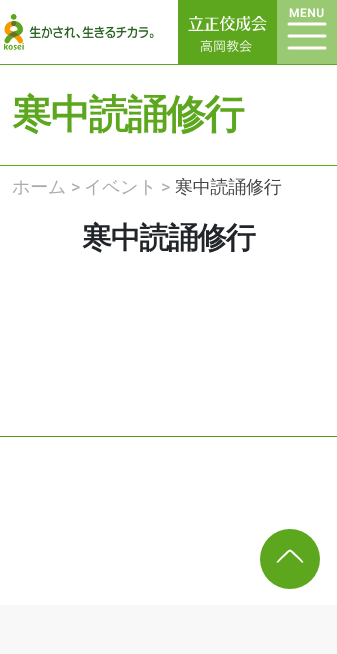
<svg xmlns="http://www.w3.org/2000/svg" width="337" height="654">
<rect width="100%" height="100%" fill="#fff"/>
<image x="178" y="0" width="99" height="64" href="media/1.png"/>
<rect x="277" width="60" height="64" fill="#9ac974"/>
<text x="289" y="17" style="font-family:Roboto;font-size:12px;font-weight:600;letter-spacing:0.5px;fill:#fff">MENU</text>
<path d="M289 24h36m-36 12h36m-36 12h36" fill="none" stroke="#fff" stroke-width="3" stroke-linecap="round"/>
<image x="4" y="14" width="150" height="36" href="media/2.png"/>
<rect y="64" width="337" height="1" fill="#5da71e"/>
<rect y="165" width="337" height="1" fill="#5da71e"/>
<text x="12" y="128" style="font-family:WenQuanYi Zen Hei;font-size:40px;font-weight:bold;letter-spacing:-1.5px;fill:#5da71e">寒中読誦修行</text>
<text x="12" y="193" style="font-family:WenQuanYi Zen Hei;font-size:18px;font-weight:500;letter-spacing:-0.25px;fill:#acacac">ホーム</text>
<text x="71" y="193" style="font-family:Roboto;font-size:18px;letter-spacing:-0.25px;fill:#acacac">&gt;</text>
<text x="84" y="193" style="font-family:WenQuanYi Zen Hei;font-size:18px;font-weight:500;letter-spacing:-0.25px;fill:#acacac">イベント</text>
<text x="161" y="193" style="font-family:Roboto;font-size:18px;letter-spacing:-0.25px;fill:#acacac">&gt;</text>
<text x="175" y="193" style="font-family:WenQuanYi Zen Hei;font-size:18px;font-weight:500;letter-spacing:-0.25px;fill:#464646">寒中読誦修行</text>
<text x="82" y="248" style="font-family:WenQuanYi Zen Hei;font-size:30px;font-weight:bold;letter-spacing:-1.25px;fill:#212529">寒中読誦修行</text>
<rect y="436" width="337" height="1" fill="#54961b"/>
<circle cx="290" cy="559" r="30" fill="#5da71e"/>
<path d="M277.5 562.5c0-1 5-5.5 6-6.5c8-7.5 5-7.5 13 0c1 1 6 5.5 6 6.5" fill="none" stroke="#fff" stroke-width="2"/>
<rect y="605" width="337" height="49" fill="#f8f8f8"/>
</svg>
